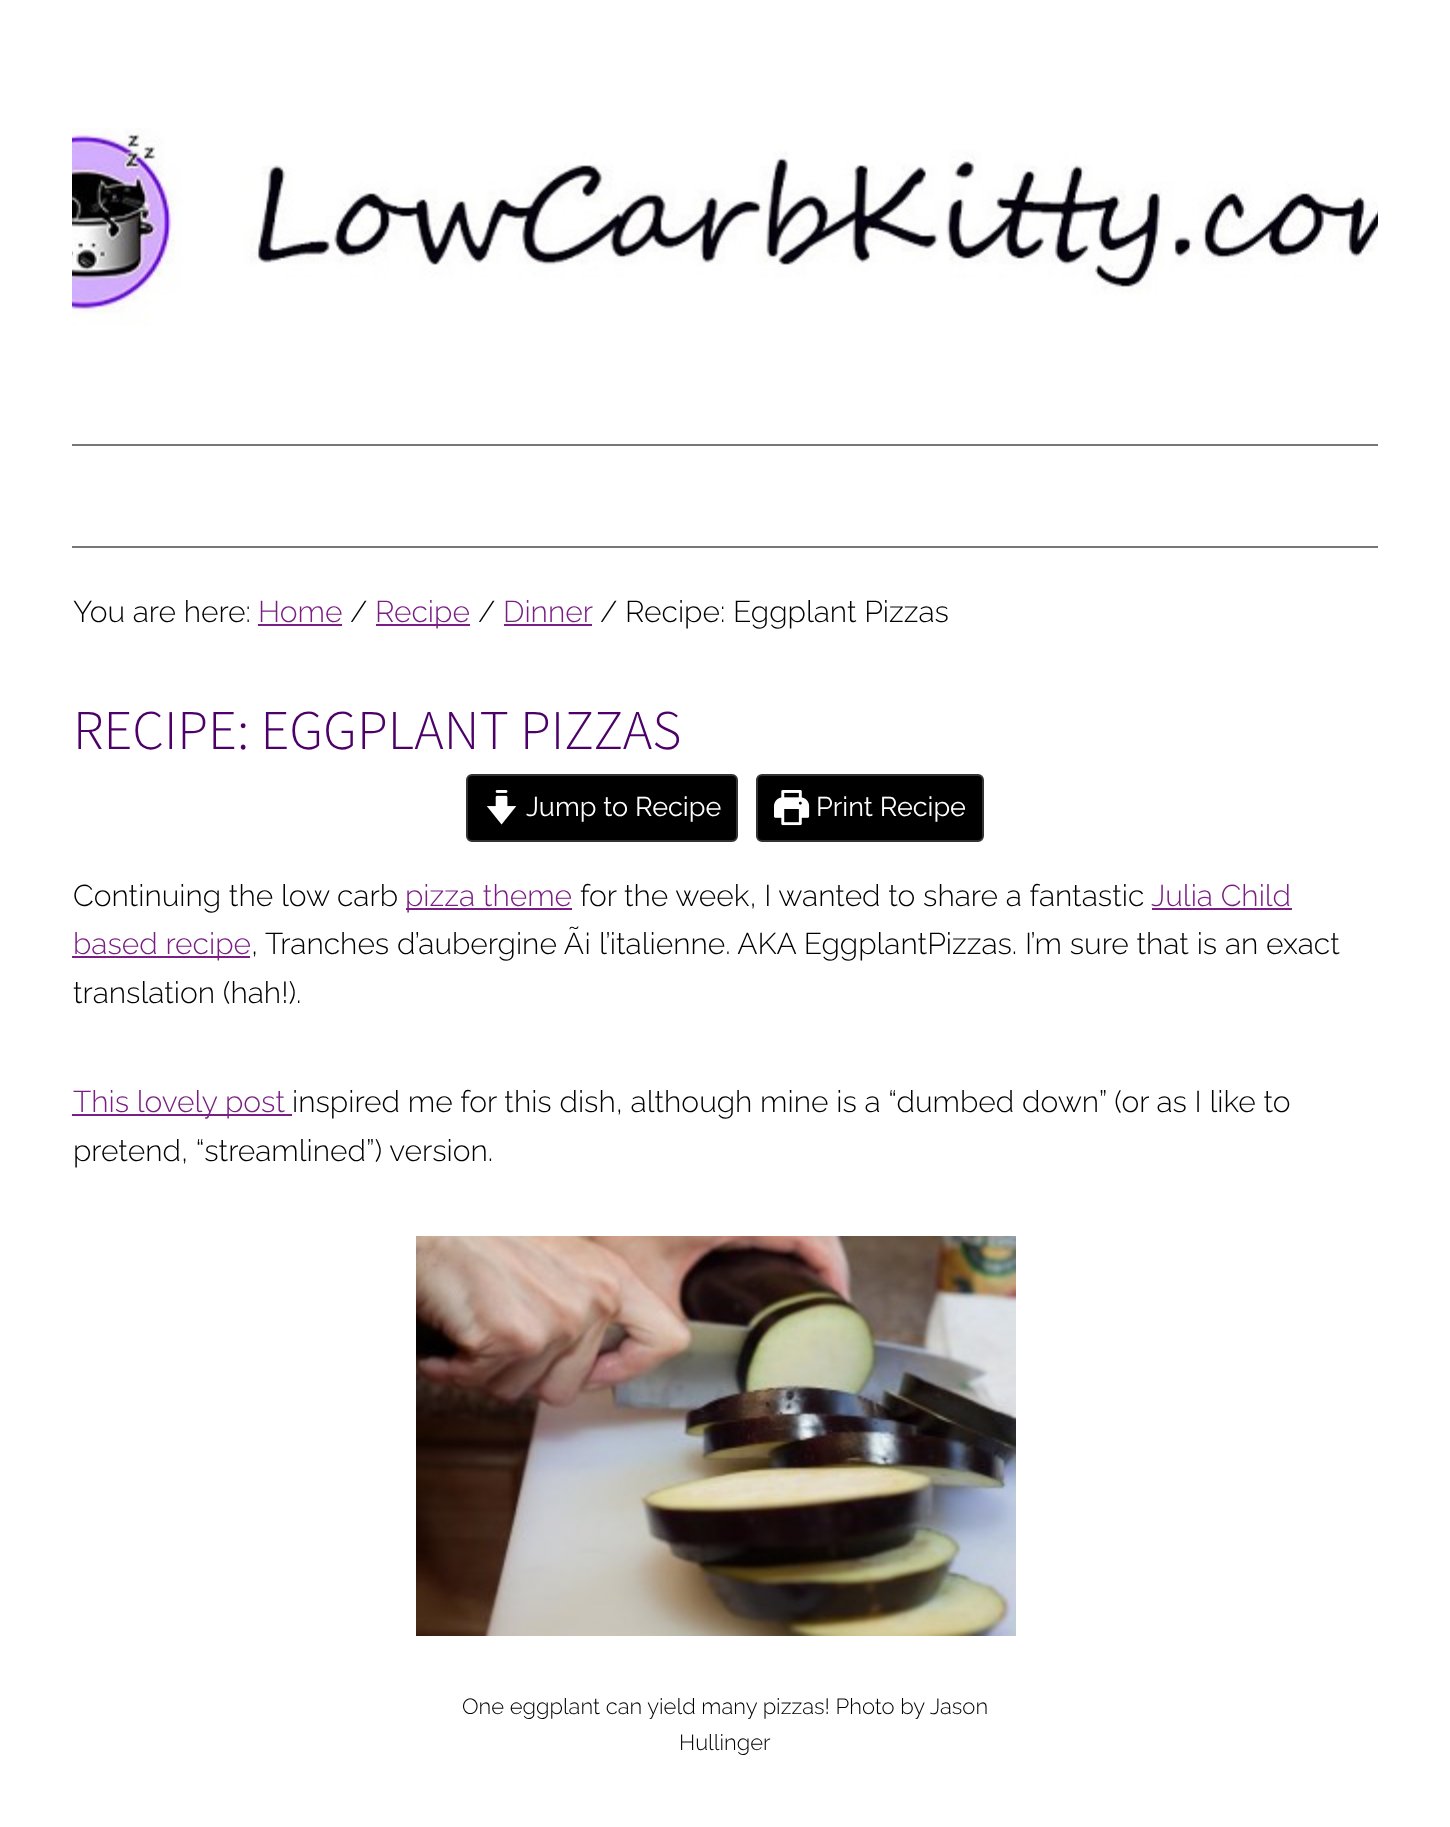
<svg xmlns="http://www.w3.org/2000/svg" width="1450" height="1827">
<rect width="100%" height="100%" fill="#fff"/>
<image x="72" y="128" width="1306" height="198" href="media/1.png"/>
<rect x="72" y="444" width="1306" height="2" fill="#777"/>
<rect x="72" y="546" width="1306" height="2" fill="#777"/>
<text x="73" y="622" style="font-family:Raleway;font-size:30px;font-weight:300;fill:#000">You are here:</text>
<text x="258" y="622" style="font-family:Raleway;font-size:30px;font-weight:300;fill:#7a1e84">Home</text>
<rect x="258" y="624" width="84" height="2" fill="#7a1e84"/>
<text x="350" y="622" style="font-family:Raleway;font-size:30px;font-weight:300;fill:#000">/</text>
<rect x="376" y="624" width="94" height="2" fill="#7a1e84"/>
<text x="375" y="622" style="font-family:Raleway;font-size:30px;font-weight:300;fill:#7a1e84">Recipe</text>
<text x="478" y="622" style="font-family:Raleway;font-size:30px;font-weight:300;fill:#000">/</text>
<text x="503" y="622" style="font-family:Raleway;font-size:30px;font-weight:300;fill:#7a1e84">Dinner</text>
<rect x="504" y="624" width="88" height="2" fill="#7a1e84"/>
<text x="600" y="622" style="font-family:Raleway;font-size:30px;font-weight:300;fill:#000">/ Recipe: Eggplant Pizzas</text>
<text x="73" y="749" style="font-family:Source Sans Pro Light;font-size:56px;font-weight:300;fill:#4c0068">RECIPE: EGGPLANT PIZZAS</text>
<rect x="467" y="775" width="270" height="66" rx="5" fill="#000" stroke="#333" stroke-width="2"/>
<image x="486" y="790" width="31" height="35" href="media/2.png"/>
<text x="526" y="816" style="font-family:Raleway;font-size:27px;fill:#fff">Jump to Recipe</text>
<rect x="757" y="775" width="226" height="66" rx="5" fill="#000" stroke="#333" stroke-width="2"/>
<image x="774" y="790" width="36" height="36" href="media/3.png"/>
<text x="816" y="816" style="font-family:Raleway;font-size:27px;fill:#fff">Print Recipe</text>
<text x="73" y="906" style="font-family:Raleway;font-size:30px;font-weight:300;fill:#000">Continuing the low carb</text>
<rect x="406" y="908" width="166" height="2" fill="#7a1e84"/>
<text x="405" y="906" style="font-family:Raleway;font-size:30px;font-weight:300;fill:#7a1e84">pizza theme</text>
<text x="580" y="906" style="font-family:Raleway;font-size:30px;font-weight:300;fill:#000">for the week, I wanted to share a fantastic</text>
<text x="1151" y="906" style="font-family:Raleway;font-size:30px;font-weight:300;fill:#7a1e84">Julia Child</text>
<rect x="1152" y="908" width="140" height="2" fill="#7a1e84"/>
<rect x="72" y="956" width="178" height="2" fill="#7a1e84"/>
<text x="73" y="954" style="font-family:Raleway;font-size:30px;font-weight:300;fill:#7a1e84">based recipe</text>
<text x="251" y="954" style="font-family:Raleway;font-size:30px;font-weight:300;fill:#000">, Tranches d’aubergine Ã¡ l’italienne. AKA EggplantPizzas. I’m sure that is an exact</text>
<text x="73" y="1003" style="font-family:Raleway;font-size:30px;font-weight:300;fill:#000">translation (hah!).</text>
<rect x="72" y="1114" width="220" height="2" fill="#7a1e84"/>
<text x="73" y="1112" style="font-family:Raleway;font-size:30px;font-weight:300;fill:#7a1e84">This lovely post</text>
<text x="292" y="1112" style="font-family:Raleway;font-size:30px;font-weight:300;fill:#000">inspired me for this dish, although mine is a “dumbed down” (or as I like to</text>
<text x="73" y="1161" style="font-family:Raleway;font-size:30px;font-weight:300;fill:#000">pretend, “streamlined”) version.</text>
<image x="416" y="1236" width="600" height="400" href="media/4.png"/>
<text x="462" y="1714" style="font-family:Raleway;font-size:22px;font-weight:300;fill:#000">One eggplant can yield many pizzas! Photo by Jason</text>
<text x="679" y="1750" style="font-family:Raleway;font-size:22px;font-weight:300;fill:#000">Hullinger</text>
</svg>
